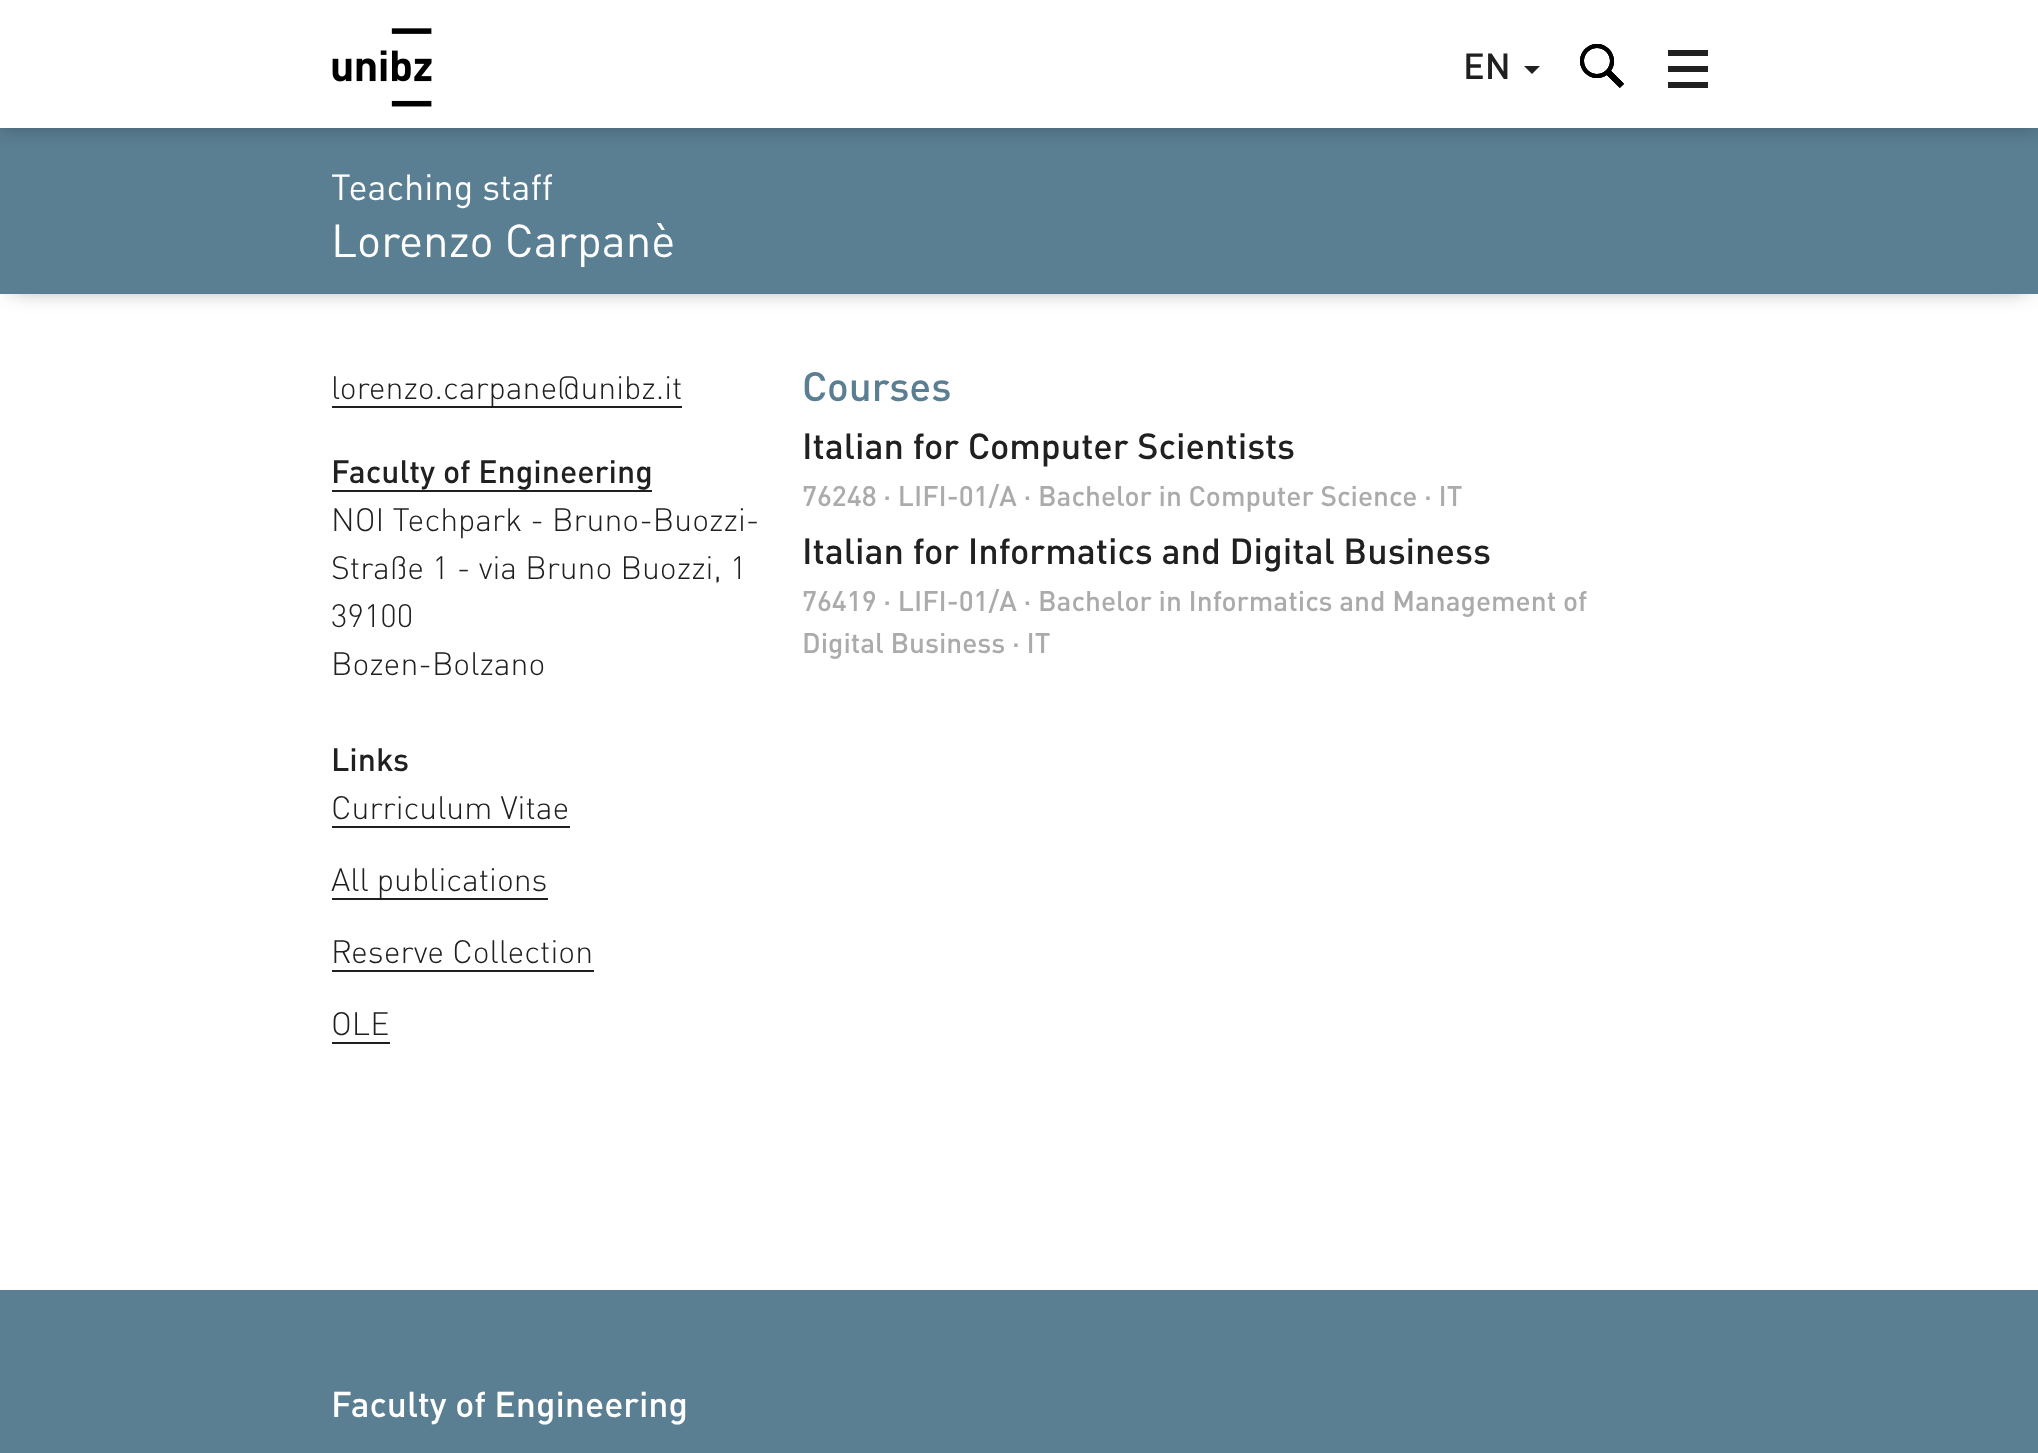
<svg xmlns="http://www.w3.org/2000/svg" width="2038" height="1453">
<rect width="100%" height="100%" fill="#fff"/>
<rect x="12" y="144" width="2014" height="142" fill="#00000080" filter="blur(12px)"/>
<rect y="128" width="2038" height="166" fill="#5a7e92"/>
<rect y="2" width="2038" height="128" fill="#00000033" filter="blur(9px)"/>
<rect width="2038" height="128" fill="#fff"/>
<image x="332" y="28" width="100" height="79" href="media/1.png"/>
<text x="1463" y="79" style="font-family:DIN;font-size:36px;font-weight:500;fill:#202020">EN</text>
<path d="M1524 66h16l-8 8z" fill="#202020"/>
<image x="1580" y="44" width="44" height="44" href="media/2.png"/>
<image x="1580" y="44" width="44" height="44" href="media/3.png"/>
<rect x="1668" y="66" width="40" height="6" fill="#202020"/>
<rect x="1668" y="50" width="40" height="6" fill="#202020"/>
<rect x="1668" y="82" width="40" height="6" fill="#202020"/>
<text x="331" y="200" style="font-family:DIN;font-size:36px;fill:#fff">Teaching staff</text>
<text x="331" y="257" style="font-family:DIN;font-size:45.5px;fill:#fff">Lorenzo Carpanè</text>
<rect x="332" y="406" width="350" height="2" fill="#202020"/>
<text x="331" y="399" style="font-family:DIN;font-size:32px;font-weight:300;fill:#202020">lorenzo.carpane@unibz.it</text>
<text x="331" y="483" style="font-family:DIN;font-size:32px;font-weight:500;fill:#202020">Faculty of Engineering</text>
<rect x="332" y="490" width="320" height="2" fill="#202020"/>
<text x="331" y="531" style="font-family:DIN;font-size:32px;font-weight:300;fill:#202020">NOI Techpark - Bruno-Buozzi-</text>
<text x="331" y="579" style="font-family:DIN;font-size:32px;font-weight:300;fill:#202020">Straße 1 - via Bruno Buozzi, 1</text>
<text x="331" y="627" style="font-family:DIN;font-size:32px;font-weight:300;fill:#202020">39100</text>
<text x="331" y="675" style="font-family:DIN;font-size:32px;font-weight:300;fill:#202020">Bozen-Bolzano</text>
<text x="331" y="771" style="font-family:DIN;font-size:32px;font-weight:500;fill:#202020">Links</text>
<text x="331" y="819" style="font-family:DIN;font-size:32px;font-weight:300;fill:#202020">Curriculum Vitae</text>
<rect x="332" y="826" width="238" height="2" fill="#202020"/>
<rect x="332" y="898" width="216" height="2" fill="#202020"/>
<text x="331" y="891" style="font-family:DIN;font-size:32px;font-weight:300;fill:#202020">All publications</text>
<text x="331" y="963" style="font-family:DIN;font-size:32px;font-weight:300;fill:#202020">Reserve Collection</text>
<rect x="332" y="970" width="262" height="2" fill="#202020"/>
<text x="331" y="1035" style="font-family:DIN;font-size:32px;font-weight:300;fill:#202020">OLE</text>
<rect x="332" y="1042" width="58" height="2" fill="#202020"/>
<text x="802" y="401" style="font-family:DIN;font-size:40.5px;font-weight:500;fill:#5a7e92">Courses</text>
<text x="802" y="459" style="font-family:DIN;font-size:36px;font-weight:500;fill:#202020">Italian for Computer Scientists</text>
<text x="802" y="506" style="font-family:DIN;font-size:28px;font-weight:500;fill:#ababab">76248 · LIFI-01/A · Bachelor in Computer Science · IT</text>
<text x="802" y="564" style="font-family:DIN;font-size:36px;font-weight:500;fill:#202020">Italian for Informatics and Digital Business</text>
<text x="802" y="611" style="font-family:DIN;font-size:28px;font-weight:500;fill:#ababab">76419 · LIFI-01/A · Bachelor in Informatics and Management of</text>
<text x="802" y="653" style="font-family:DIN;font-size:28px;font-weight:500;fill:#ababab">Digital Business · IT</text>
<rect y="1290" width="2038" height="163" fill="#5a7e92"/>
<text x="331" y="1417" style="font-family:DIN;font-size:35.5px;font-weight:500;fill:#fff">Faculty of Engineering</text>
</svg>
